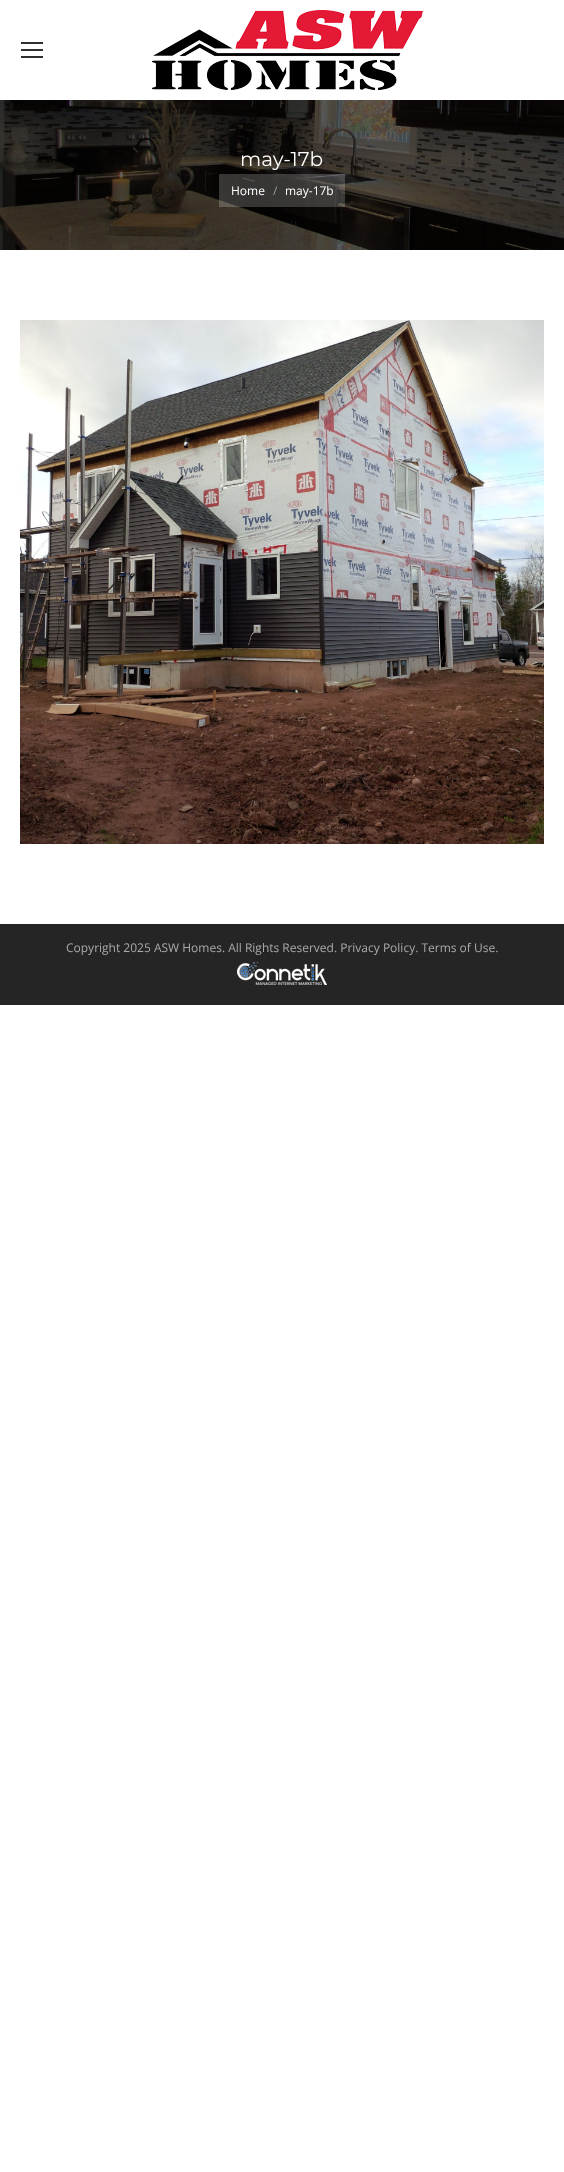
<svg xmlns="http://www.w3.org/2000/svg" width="564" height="2172">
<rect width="100%" height="100%" fill="#fff"/>
<rect x="21" y="42" width="22" height="2" fill="#303030"/>
<rect x="21" y="49" width="22" height="2" fill="#303030"/>
<rect x="21" y="56" width="22" height="2" fill="#303030"/>
<image x="152" y="10" width="271" height="80" href="media/1.png"/>
<image x="0" y="100" width="564" height="150" href="media/2.png"/>
<text x="240" y="166" style="font-family:Montserrat;font-size:20px;fill:#fff">may-17b</text>
<rect x="219" y="174" width="126" height="33" fill="#ffffff33"/>
<text x="231" y="195" style="font-family:Open Sans;font-size:12px;fill:#fff">Home</text>
<text x="273" y="195" style="font-family:Open Sans;font-size:12px;fill:#9c9c9b">/</text>
<text x="285" y="195" style="font-family:Open Sans;font-size:12px;fill:#fff">may-17b</text>
<image x="20" y="320" width="524" height="524" href="media/3.png"/>
<rect y="924" width="564" height="81" fill="#252525"/>
<text x="66" y="952" style="font-family:Open Sans;font-size:12px;fill:#aaa">Copyright 2025 ASW Homes. All Rights Reserved. Privacy Policy. Terms of Use.</text>
<image x="237" y="962" width="90" height="23" href="media/4.png"/>
</svg>
